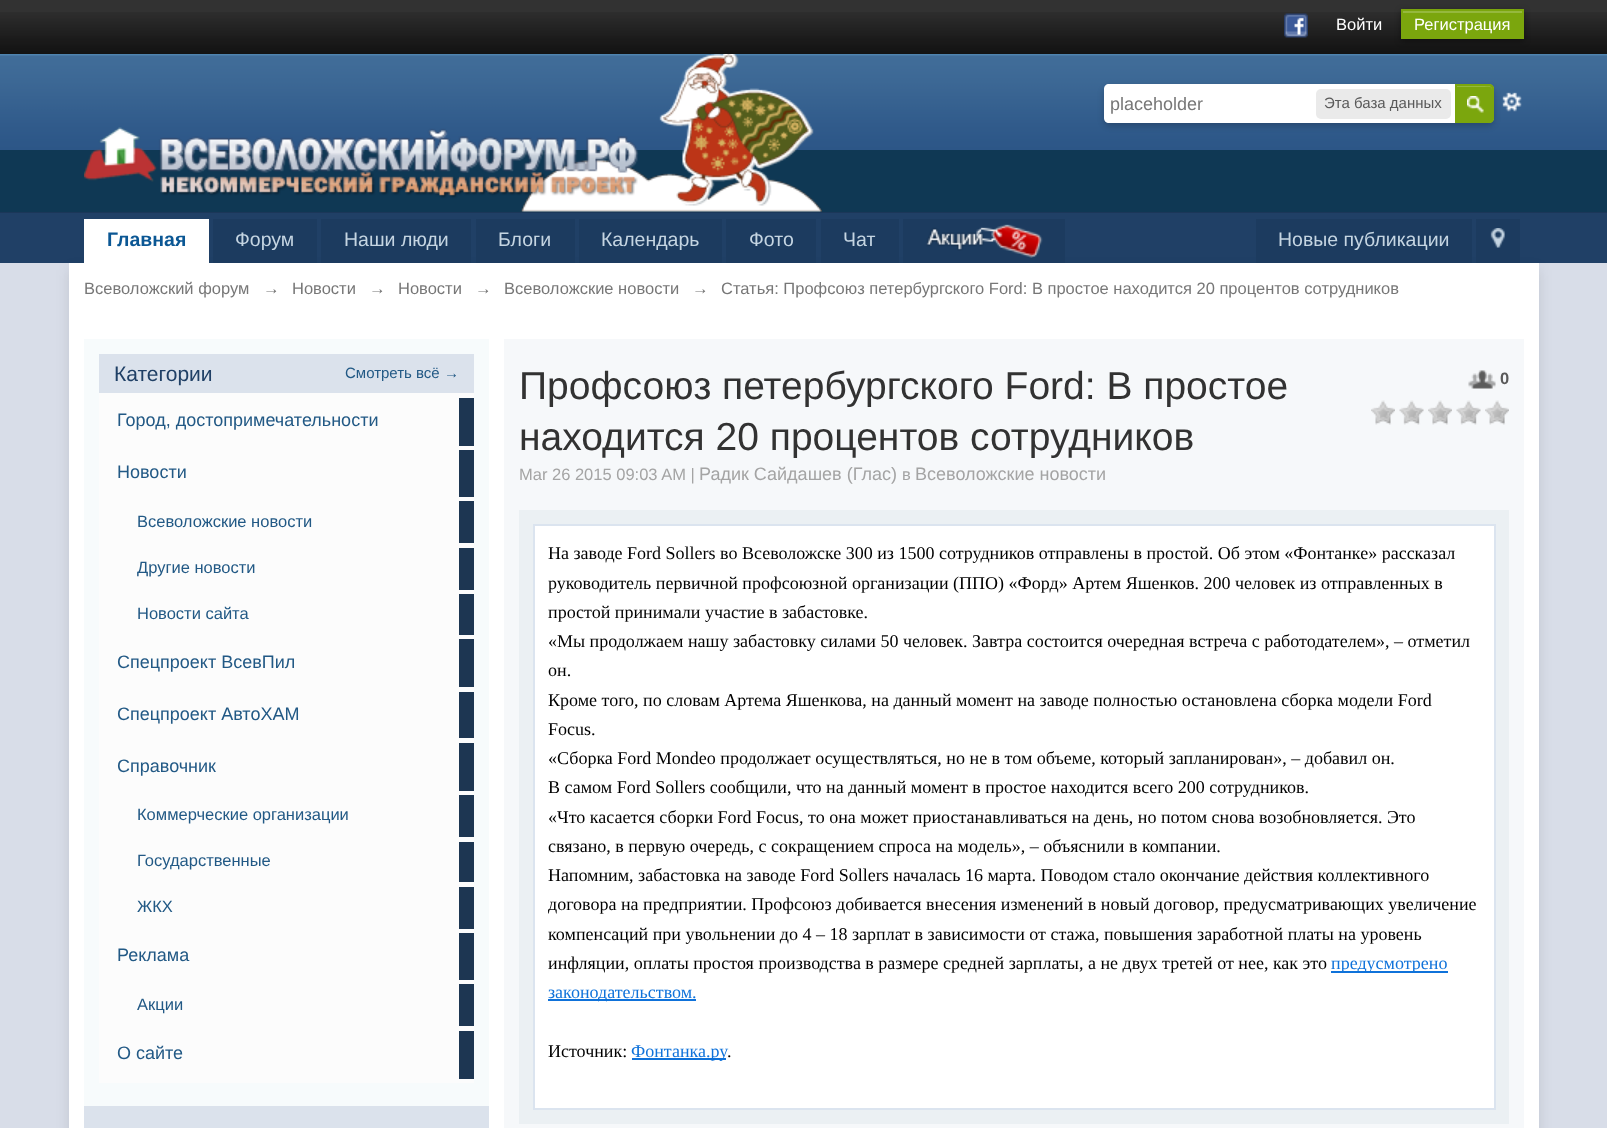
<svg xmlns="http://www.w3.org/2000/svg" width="1607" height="1128">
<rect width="100%" height="100%" fill="#d8dde8"/>
<rect width="1607" height="12" fill="#323232"/>
<image x="0" y="12" width="1607" height="42" href="media/1.png"/>
<image x="1284" y="13" width="24" height="25" href="media/2.png"/>
<text x="1336" y="30" style="font-family:Liberation Sans;font-size:16.5px;fill:#fff">Войти</text>
<rect x="1401" y="11" width="123" height="30" fill="#00000066" filter="blur(3px)"/>
<rect x="1403" y="13" width="119" height="24" fill="#7ba60d"/>
<rect x="1403" y="11" width="120" height="2" fill="#95b83d"/>
<rect x="1402" y="10" width="121" height="28" fill="none" stroke="#7ba60d" stroke-width="2"/>
<text x="1414" y="30" style="font-family:Liberation Sans;font-size:16.5px;fill:#fff">Регистрация</text>
<rect y="150" width="1607" height="62" fill="#0f3854"/>
<image x="0" y="54" width="1607" height="96" href="media/3.png"/>
<rect y="212" width="1607" height="1" fill="#1b3759"/>
<image x="84" y="54" width="738" height="158" href="media/4.png"/>
<image x="1502" y="92" width="20" height="20" href="media/6.png"/>
<rect x="1104" y="87" width="390" height="39" rx="6" fill="#00000033" filter="blur(3px)"/>
<path d="M1109 84h379c3.5 0 6 2.5 6 6v27c0 3.5-2.5 6-6 6h-379c-3 0-5-2-5-5v-29c0-3 2-5 5-5z" fill="#fff"/>
<text x="1110" y="110" style="font-family:Liberation Sans;font-size:18px;fill:#777">placeholder</text>
<rect x="1316" y="89" width="135" height="30" rx="5" fill="#eaeaea"/>
<text x="1324" y="108" style="font-family:Liberation Sans;font-size:15px;fill:#5a5a5a">Эта база данных</text>
<path d="M1455 84h34c3 0 5 2 5 5v29c0 3-2 5-5 5h-34z" fill="#7ba60d"/>
<image x="1467" y="96" width="17" height="17" href="media/5.png"/>
<path d="M1457 86v1h27.5c3 0 7.5-1.5 7.5 3v31.5c.5-.5 1-1.5 1-2.5v-30c0-1.5-1.5-3-3-3z" fill="#95b83d"/>
<path d="M1456 85h33c2 0 4 2 4 4v29c0 2-2 4-4 4h-33z" fill="none" stroke="#7ba60d" stroke-width="2"/>
<rect y="213" width="1607" height="50" fill="#204066"/>
<rect x="69" y="270" width="1470" height="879" fill="#0000001a" filter="blur(7px)"/>
<rect x="84" y="219" width="125" height="44" fill="#fff"/>
<text x="107" y="246" style="font-family:Liberation Sans;font-size:19.5px;font-weight:bold;fill:#0b5794">Главная</text>
<rect x="213" y="219" width="104" height="44" fill="#1c3b5f"/>
<text x="235" y="246" style="font-family:Liberation Sans;font-size:19.5px;fill:#c5d5e2">Форум</text>
<rect x="321" y="219" width="150" height="44" fill="#1c3b5f"/>
<text x="344" y="246" style="font-family:Liberation Sans;font-size:19.5px;fill:#c5d5e2">Наши люди</text>
<rect x="476" y="219" width="99" height="44" fill="#1c3b5f"/>
<text x="498" y="246" style="font-family:Liberation Sans;font-size:19.5px;fill:#c5d5e2">Блоги</text>
<rect x="579" y="219" width="143" height="44" fill="#1c3b5f"/>
<text x="601" y="246" style="font-family:Liberation Sans;font-size:19.5px;fill:#c5d5e2">Календарь</text>
<rect x="726" y="219" width="90" height="44" fill="#1c3b5f"/>
<text x="749" y="246" style="font-family:Liberation Sans;font-size:19.5px;fill:#c5d5e2">Фото</text>
<rect x="821" y="219" width="78" height="44" fill="#1c3b5f"/>
<text x="843" y="246" style="font-family:Liberation Sans;font-size:19.5px;fill:#c5d5e2">Чат</text>
<rect x="903" y="219" width="162" height="44" fill="#1c3b5f"/>
<image x="926" y="224" width="117" height="34" href="media/7.png"/>
<rect x="1256" y="219" width="216" height="44" fill="#1c3b5f"/>
<text x="1278" y="246" style="font-family:Liberation Sans;font-size:19.5px;fill:#c5d5e2">Новые публикации</text>
<rect x="1476" y="219" width="44" height="44" fill="#1c3b5f"/>
<image x="1490" y="228" width="15" height="20" href="media/8.png"/>
<rect x="69" y="263" width="1470" height="865" fill="#fff"/>
<text x="84" y="294" style="font-family:Liberation Sans;font-size:16.5px;fill:#777">Всеволожский форум</text>
<text x="263" y="294" style="font-family:Liberation Sans;font-size:16.5px;fill:#777">→</text>
<text x="292" y="294" style="font-family:Liberation Sans;font-size:16.5px;fill:#777">Новости</text>
<text x="369" y="294" style="font-family:Liberation Sans;font-size:16.5px;fill:#777">→</text>
<text x="398" y="294" style="font-family:Liberation Sans;font-size:16.5px;fill:#777">Новости</text>
<text x="475" y="294" style="font-family:Liberation Sans;font-size:16.5px;fill:#777">→</text>
<text x="504" y="294" style="font-family:Liberation Sans;font-size:16.5px;fill:#777">Всеволожские новости</text>
<text x="692" y="294" style="font-family:Liberation Sans;font-size:16.5px;fill:#777">→</text>
<text x="721" y="294" style="font-family:Liberation Sans;font-size:16.5px;fill:#777">Статья: Профсоюз петербургского Ford: В простое находится 20 процентов сотрудников</text>
<rect x="84" y="339" width="405" height="767" fill="#f7fbfc"/>
<rect x="99" y="393" width="375" height="690" fill="#fcfcfc"/>
<rect x="99" y="354" width="375" height="39" fill="#dbe2ec"/>
<text x="114" y="381" style="font-family:Liberation Sans;font-size:21px;fill:#204066">Категории</text>
<text x="345" y="378" style="font-family:Liberation Sans;font-size:15px;fill:#225985">Смотреть всё →</text>
<rect x="459" y="398" width="15" height="48" fill="#1d3652"/>
<text x="117" y="426" style="font-family:Liberation Sans;font-size:18px;fill:#225985">Город, достопримечательности</text>
<rect x="459" y="450" width="15" height="47" fill="#1d3652"/>
<text x="117" y="478" style="font-family:Liberation Sans;font-size:18px;fill:#225985">Новости</text>
<rect x="459" y="501" width="15" height="42" fill="#1d3652"/>
<text x="137" y="527" style="font-family:Liberation Sans;font-size:16.5px;fill:#225985">Всеволожские новости</text>
<rect x="459" y="548" width="15" height="42" fill="#1d3652"/>
<text x="137" y="573" style="font-family:Liberation Sans;font-size:16.5px;fill:#225985">Другие новости</text>
<rect x="459" y="594" width="15" height="41" fill="#1d3652"/>
<text x="137" y="619" style="font-family:Liberation Sans;font-size:16.5px;fill:#225985">Новости сайта</text>
<rect x="459" y="639" width="15" height="48" fill="#1d3652"/>
<text x="117" y="668" style="font-family:Liberation Sans;font-size:18px;fill:#225985">Спецпроект ВсевПил</text>
<rect x="459" y="692" width="15" height="46" fill="#1d3652"/>
<text x="117" y="720" style="font-family:Liberation Sans;font-size:18px;fill:#225985">Спецпроект АвтоХАМ</text>
<rect x="459" y="743" width="15" height="48" fill="#1d3652"/>
<text x="117" y="772" style="font-family:Liberation Sans;font-size:18px;fill:#225985">Справочник</text>
<rect x="459" y="795" width="15" height="42" fill="#1d3652"/>
<text x="137" y="820" style="font-family:Liberation Sans;font-size:16.5px;fill:#225985">Коммерческие организации</text>
<rect x="459" y="842" width="15" height="40" fill="#1d3652"/>
<text x="137" y="866" style="font-family:Liberation Sans;font-size:16.5px;fill:#225985">Государственные</text>
<rect x="459" y="887" width="15" height="42" fill="#1d3652"/>
<text x="137" y="912" style="font-family:Liberation Sans;font-size:16.5px;fill:#225985">ЖКХ</text>
<rect x="459" y="933" width="15" height="47" fill="#1d3652"/>
<text x="117" y="961" style="font-family:Liberation Sans;font-size:18px;fill:#225985">Реклама</text>
<rect x="459" y="984" width="15" height="42" fill="#1d3652"/>
<text x="137" y="1010" style="font-family:Liberation Sans;font-size:16.5px;fill:#225985">Акции</text>
<rect x="459" y="1031" width="15" height="48" fill="#1d3652"/>
<text x="117" y="1059" style="font-family:Liberation Sans;font-size:18px;fill:#225985">О сайте</text>
<rect x="84" y="1106" width="405" height="22" fill="#dbe2ec"/>
<rect x="504" y="339" width="1020" height="789" fill="#f6f8fa"/>
<text x="519" y="399" style="font-family:Liberation Sans;font-size:39px;fill:#323232">Профсоюз петербургского Ford: В простое</text>
<text x="519" y="450" style="font-family:Liberation Sans;font-size:39px;fill:#323232">находится 20 процентов сотрудников</text>
<image x="1468" y="370" width="28" height="19" href="media/9.png"/>
<text x="1500" y="384" style="font-family:Liberation Sans;font-size:16.5px;font-weight:bold;fill:#5a5a5a">0</text>
<image x="1371" y="400" width="24" height="25" href="media/10.png"/>
<image x="1399" y="400" width="25" height="25" href="media/11.png"/>
<image x="1428" y="400" width="24" height="25" href="media/10.png"/>
<image x="1456" y="400" width="25" height="25" href="media/11.png"/>
<image x="1485" y="400" width="24" height="25" href="media/12.png"/>
<text x="519" y="480" style="font-family:Liberation Sans;font-size:16.5px;fill:#a4a4a4">Mar 26 2015 09:03 AM |</text>
<text x="699" y="480" style="font-family:Liberation Sans;font-size:18px;fill:#a4a4a4">Радик Сайдашев (Глас)</text>
<text x="902" y="480" style="font-family:Liberation Sans;font-size:16.5px;fill:#a4a4a4">в</text>
<text x="915" y="480" style="font-family:Liberation Sans;font-size:18px;fill:#a4a4a4">Всеволожские новости</text>
<rect x="519" y="510" width="990" height="614" fill="#ebf0f3"/>
<rect x="534" y="525" width="961" height="584" fill="#fff" stroke="#dbe4ef" stroke-width="2"/>
<text x="548" y="559" style="font-family:Liberation Serif;font-size:18px;fill:#000">На заводе Ford Sollers во Всеволожске 300 из 1500 сотрудников отправлены в простой. Об этом «Фонтанке» рассказал</text>
<text x="548" y="589" style="font-family:Liberation Serif;font-size:18px;fill:#000">руководитель первичной профсоюзной организации (ППО) «Форд» Артем Яшенков. 200 человек из отправленных в</text>
<text x="548" y="618" style="font-family:Liberation Serif;font-size:18px;fill:#000">простой принимали участие в забастовке.</text>
<text x="548" y="647" style="font-family:Liberation Serif;font-size:18px;fill:#000">«Мы продолжаем нашу забастовку силами 50 человек. Завтра состоится очередная встреча с работодателем», – отметил</text>
<text x="548" y="676" style="font-family:Liberation Serif;font-size:18px;fill:#000">он.</text>
<text x="548" y="706" style="font-family:Liberation Serif;font-size:18px;fill:#000">Кроме того, по словам Артема Яшенкова, на данный момент на заводе полностью остановлена сборка модели Ford</text>
<text x="548" y="735" style="font-family:Liberation Serif;font-size:18px;fill:#000">Focus.</text>
<text x="548" y="764" style="font-family:Liberation Serif;font-size:18px;fill:#000">«Сборка Ford Mondeo продолжает осуществляться, но не в том объеме, который запланирован», – добавил он.</text>
<text x="548" y="793" style="font-family:Liberation Serif;font-size:18px;fill:#000">В самом Ford Sollers сообщили, что на данный момент в простое находится всего 200 сотрудников.</text>
<text x="548" y="823" style="font-family:Liberation Serif;font-size:18px;fill:#000">«Что касается сборки Ford Focus, то она может приостанавливаться на день, но потом снова возобновляется. Это</text>
<text x="548" y="852" style="font-family:Liberation Serif;font-size:18px;fill:#000">связано, в первую очередь, с сокращением спроса на модель», – объяснили в компании.</text>
<text x="548" y="881" style="font-family:Liberation Serif;font-size:18px;fill:#000">Напомним, забастовка на заводе Ford Sollers началась 16 марта. Поводом стало окончание действия коллективного</text>
<text x="548" y="910" style="font-family:Liberation Serif;font-size:18px;fill:#000">договора на предприятии. Профсоюз добивается внесения изменений в новый договор, предусматривающих увеличение</text>
<text x="548" y="940" style="font-family:Liberation Serif;font-size:18px;fill:#000">компенсаций при увольнении до 4 – 18 зарплат в зависимости от стажа, повышения заработной платы на уровень</text>
<text x="548" y="969" style="font-family:Liberation Serif;font-size:18px;fill:#000">инфляции, оплаты простоя производства в размере средней зарплаты, а не двух третей от нее, как это</text>
<rect x="1331" y="971" width="117" height="2" fill="#0f72da"/>
<text x="1331" y="969" style="font-family:Liberation Serif;font-size:18px;fill:#0f72da">предусмотрено</text>
<rect x="548" y="999" width="148" height="2" fill="#0f72da"/>
<text x="548" y="998" style="font-family:Liberation Serif;font-size:18px;fill:#0f72da">законодательством.</text>
<text x="548" y="1057" style="font-family:Liberation Serif;font-size:18px;fill:#000">Источник:</text>
<rect x="632" y="1058" width="94" height="2" fill="#0f72da"/>
<text x="631" y="1057" style="font-family:Liberation Serif;font-size:18px;fill:#0f72da">Фонтанка.ру</text>
<text x="727" y="1057" style="font-family:Liberation Serif;font-size:18px;fill:#000">.</text>
</svg>
